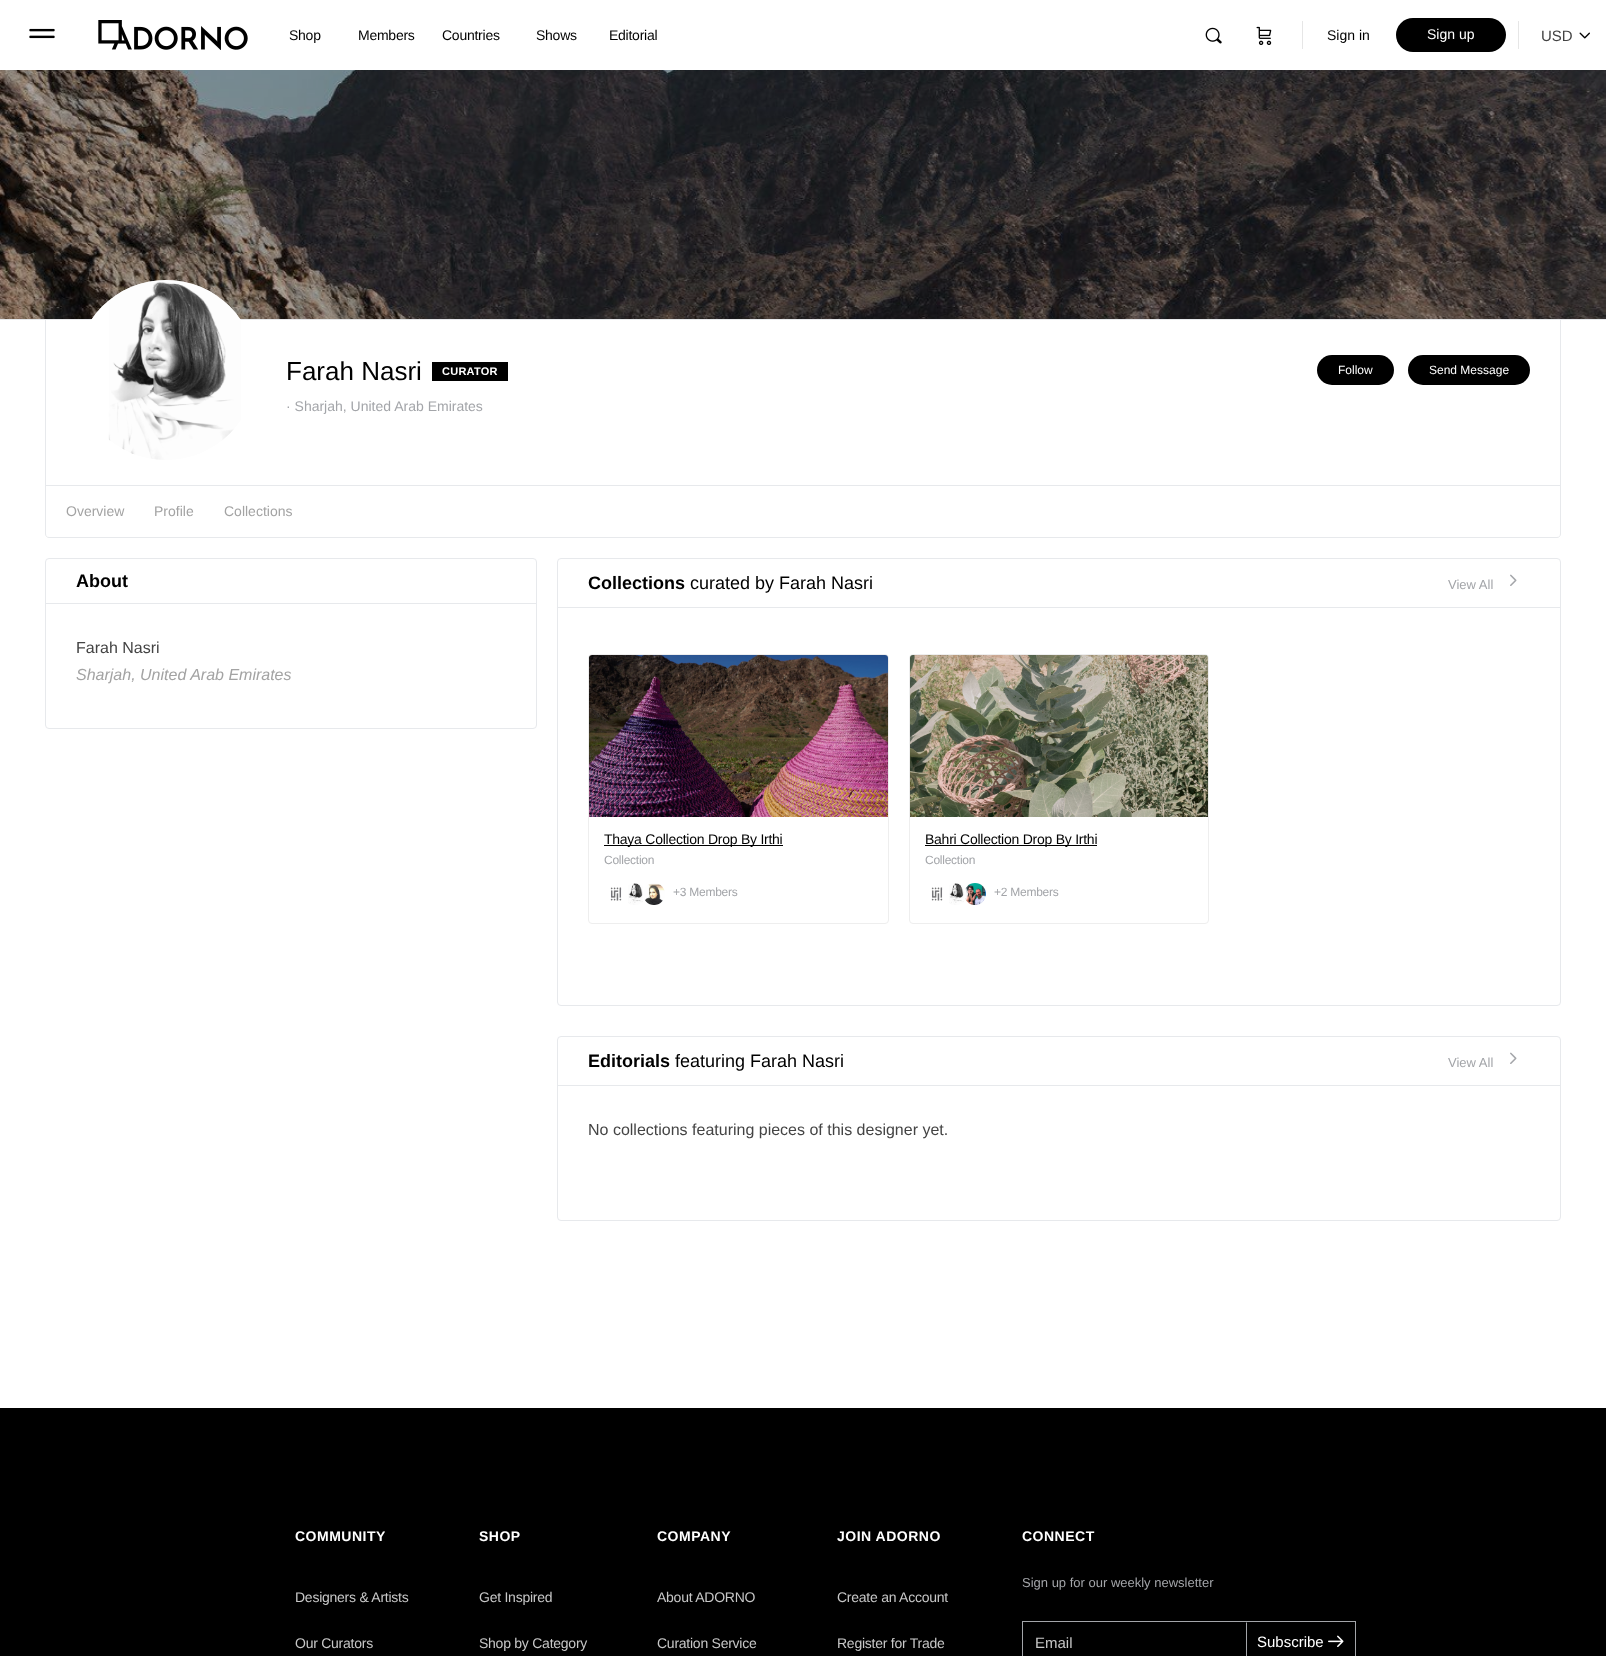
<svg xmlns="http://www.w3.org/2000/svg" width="1606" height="1656">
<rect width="100%" height="100%" fill="#fff"/>
<path d="M45.5 485.5h1515v48.5c0 2-1.5 3.5-3.5 3.5h-1508c-2 0-3.5-1.5-3.5-3.5z" fill="none" stroke="#e7e9ec"/>
<rect x="45.5" y="69.5" width="1515" height="416" fill="none" stroke="#e7e9ec"/>
<rect x="45" y="69" width="1516" height="1" fill="#fff"/>
<image x="29" y="28" width="26" height="11" href="media/1.png"/>
<image x="98" y="20" width="150" height="30" href="media/2.png"/>
<text x="289" y="40" style="font-family:Liberation Sans;font-size:14px;letter-spacing:-0.25px;fill:#000">Shop</text>
<text x="358" y="40" style="font-family:Liberation Sans;font-size:14px;letter-spacing:-0.25px;fill:#000">Members</text>
<text x="442" y="40" style="font-family:Liberation Sans;font-size:14px;letter-spacing:-0.25px;fill:#000">Countries</text>
<text x="536" y="40" style="font-family:Liberation Sans;font-size:14px;letter-spacing:-0.25px;fill:#000">Shows</text>
<text x="609" y="40" style="font-family:Liberation Sans;font-size:14px;letter-spacing:-0.25px;fill:#000">Editorial</text>
<image x="1205" y="27" width="17" height="17" href="media/3.png"/>
<image x="1256" y="26" width="16" height="19" href="media/4.png"/>
<rect x="1302" y="21" width="1" height="28" fill="#e6e6e6"/>
<text x="1327" y="40" style="font-family:Liberation Sans;font-size:14px;fill:#000">Sign in</text>
<rect x="1396" y="18" width="110" height="34" rx="17" fill="#000"/>
<text x="1427" y="39" style="font-family:Liberation Sans;font-size:14px;fill:#fff">Sign up</text>
<rect x="1518" y="21" width="1" height="28" fill="#e6e6e6"/>
<text x="1541" y="41" style="font-family:Liberation Sans;font-size:15px;fill:#444">USD</text>
<image x="1579" y="32" width="11" height="7" href="media/5.png"/>
<rect y="319" width="1606" height="1" fill="#e7e9ec"/>
<image x="0" y="70" width="1606" height="249" href="media/6.png"/>
<circle cx="166" cy="370" r="90" fill="#ffffffcc"/>
<image x="91" y="280" width="150" height="180" href="media/7.png"/>
<text x="286" y="380" style="font-family:Liberation Sans;font-size:26px;fill:#000">Farah Nasri</text>
<rect x="432" y="362" width="76" height="19" fill="#000"/>
<text x="442" y="375" style="font-family:Liberation Sans;font-size:11px;font-weight:bold;letter-spacing:0.25px;fill:#fff">CURATOR</text>
<text x="286" y="411" style="font-family:Liberation Sans;font-size:14px;fill:#a3a5a9">· Sharjah, United Arab Emirates</text>
<rect x="1317" y="355" width="77" height="30" rx="15" fill="#000"/>
<text x="1338" y="374" style="font-family:Liberation Sans;font-size:12px;fill:#fff">Follow</text>
<rect x="1408" y="355" width="122" height="30" rx="15" fill="#000"/>
<text x="1429" y="374" style="font-family:Liberation Sans;font-size:12px;fill:#fff">Send Message</text>
<text x="66" y="516" style="font-family:Liberation Sans;font-size:14px;fill:#a3a3a3">Overview</text>
<text x="154" y="516" style="font-family:Liberation Sans;font-size:14px;fill:#a3a3a3">Profile</text>
<text x="224" y="516" style="font-family:Liberation Sans;font-size:14px;fill:#a3a3a3">Collections</text>
<rect x="45.5" y="558.5" width="491" height="170" rx="3.5" fill="none" stroke="#e7e9ec"/>
<rect x="46" y="603" width="490" height="1" fill="#e7e9ec"/>
<text x="76" y="587" style="font-family:Liberation Sans;font-size:18px;font-weight:bold;fill:#000">About</text>
<text x="76" y="653" style="font-family:Liberation Sans;font-size:16px;fill:#444">Farah Nasri</text>
<text x="76" y="680" style="font-family:Liberation Sans;font-size:16px;font-style:italic;fill:#a3a3a3">Sharjah, United Arab Emirates</text>
<rect x="557.5" y="558.5" width="1003" height="447" rx="3.5" fill="none" stroke="#e7e9ec"/>
<rect x="558" y="607" width="1002" height="1" fill="#e7e9ec"/>
<text x="588" y="589" style="font-family:Liberation Sans;font-size:18px;font-weight:bold;fill:#000">Collections</text>
<text x="690" y="589" style="font-family:Liberation Sans;font-size:18px;fill:#000">curated by Farah Nasri</text>
<text x="1448" y="589" style="font-family:Liberation Sans;font-size:13px;fill:#a3a5a9">View All</text>
<image x="1510" y="574" width="7" height="12" href="media/8.png"/>
<rect x="588.5" y="654.5" width="300" height="269" rx="3.5" fill="none" stroke="#eee"/>
<image x="589" y="655" width="299" height="162" href="media/9.png"/>
<rect x="604" y="845" width="179" height="1" fill="#000"/>
<text x="604" y="844" style="font-family:Liberation Sans;font-size:14px;letter-spacing:-0.25px;fill:#000">Thaya Collection Drop By Irthi</text>
<text x="604" y="864" style="font-family:Liberation Sans;font-size:12px;letter-spacing:-0.25px;fill:#a3a5a9">Collection</text>
<image x="610" y="887" width="12" height="14" href="media/10.png"/>
<image x="644" y="883" width="21" height="22" href="media/12.png"/>
<circle cx="635" cy="894" r="11.5" fill="none" stroke="#fff"/>
<image x="628" y="883" width="15" height="22" href="media/11.png"/>
<text x="673" y="896" style="font-family:Liberation Sans;font-size:12px;letter-spacing:-0.25px;fill:#a3a5a9">+3 Members</text>
<rect x="909.5" y="654.5" width="299" height="269" rx="3.5" fill="none" stroke="#eee"/>
<image x="910" y="655" width="298" height="162" href="media/13.png"/>
<rect x="925" y="845" width="172" height="1" fill="#000"/>
<text x="925" y="844" style="font-family:Liberation Sans;font-size:14px;letter-spacing:-0.25px;fill:#000">Bahri Collection Drop By Irthi</text>
<text x="925" y="864" style="font-family:Liberation Sans;font-size:12px;letter-spacing:-0.25px;fill:#a3a5a9">Collection</text>
<image x="931" y="887" width="12" height="14" href="media/14.png"/>
<image x="965" y="883" width="21" height="22" href="media/16.png"/>
<circle cx="956" cy="894" r="11.5" fill="none" stroke="#fff"/>
<image x="949" y="883" width="18" height="22" href="media/15.png"/>
<text x="994" y="896" style="font-family:Liberation Sans;font-size:12px;letter-spacing:-0.25px;fill:#a3a5a9">+2 Members</text>
<rect x="557.5" y="1036.5" width="1003" height="184" rx="3.5" fill="none" stroke="#e7e9ec"/>
<rect x="558" y="1085" width="1002" height="1" fill="#e7e9ec"/>
<text x="588" y="1067" style="font-family:Liberation Sans;font-size:18px;font-weight:bold;fill:#000">Editorials</text>
<text x="675" y="1067" style="font-family:Liberation Sans;font-size:18px;fill:#000">featuring Farah Nasri</text>
<text x="1448" y="1067" style="font-family:Liberation Sans;font-size:13px;fill:#a3a5a9">View All</text>
<image x="1510" y="1052" width="7" height="12" href="media/8.png"/>
<text x="588" y="1135" style="font-family:Liberation Sans;font-size:16px;fill:#444">No collections featuring pieces of this designer yet.</text>
<rect y="1408" width="1606" height="248" fill="#000"/>
<text x="295" y="1541" style="font-family:Liberation Sans;font-size:14px;font-weight:bold;letter-spacing:0.5px;fill:#fff">COMMUNITY</text>
<text x="295" y="1602" style="font-family:Liberation Sans;font-size:14px;letter-spacing:-0.25px;fill:#c7c7c7">Designers &amp; Artists</text>
<text x="295" y="1648" style="font-family:Liberation Sans;font-size:14px;letter-spacing:-0.25px;fill:#c7c7c7">Our Curators</text>
<text x="479" y="1541" style="font-family:Liberation Sans;font-size:14px;font-weight:bold;letter-spacing:0.5px;fill:#fff">SHOP</text>
<text x="479" y="1602" style="font-family:Liberation Sans;font-size:14px;letter-spacing:-0.25px;fill:#c7c7c7">Get Inspired</text>
<text x="479" y="1648" style="font-family:Liberation Sans;font-size:14px;letter-spacing:-0.25px;fill:#c7c7c7">Shop by Category</text>
<text x="657" y="1541" style="font-family:Liberation Sans;font-size:14px;font-weight:bold;letter-spacing:0.5px;fill:#fff">COMPANY</text>
<text x="657" y="1602" style="font-family:Liberation Sans;font-size:14px;letter-spacing:-0.25px;fill:#c7c7c7">About ADORNO</text>
<text x="657" y="1648" style="font-family:Liberation Sans;font-size:14px;letter-spacing:-0.25px;fill:#c7c7c7">Curation Service</text>
<text x="837" y="1541" style="font-family:Liberation Sans;font-size:14px;font-weight:bold;letter-spacing:0.5px;fill:#fff">JOIN ADORNO</text>
<text x="837" y="1602" style="font-family:Liberation Sans;font-size:14px;letter-spacing:-0.25px;fill:#c7c7c7">Create an Account</text>
<text x="837" y="1648" style="font-family:Liberation Sans;font-size:14px;letter-spacing:-0.25px;fill:#c7c7c7">Register for Trade</text>
<text x="1022" y="1541" style="font-family:Liberation Sans;font-size:14px;font-weight:bold;letter-spacing:0.5px;fill:#fff">CONNECT</text>
<text x="1022" y="1587" style="font-family:Liberation Sans;font-size:13px;fill:#a3a5a9">Sign up for our weekly newsletter</text>
<rect x="1022.5" y="1621.5" width="333" height="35" fill="none" stroke="#a3a5a9"/>
<text x="1035" y="1648" style="font-family:Liberation Sans;font-size:15px;fill:#c7c7c7">Email</text>
<path d="M1246 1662v-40l1 1v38z" fill="#a3a5a9"/>
<text x="1257" y="1647" style="font-family:Liberation Sans;font-size:15px;fill:#fff">Subscribe</text>
<image x="1328" y="1635" width="16" height="12" href="media/17.png"/>
</svg>
